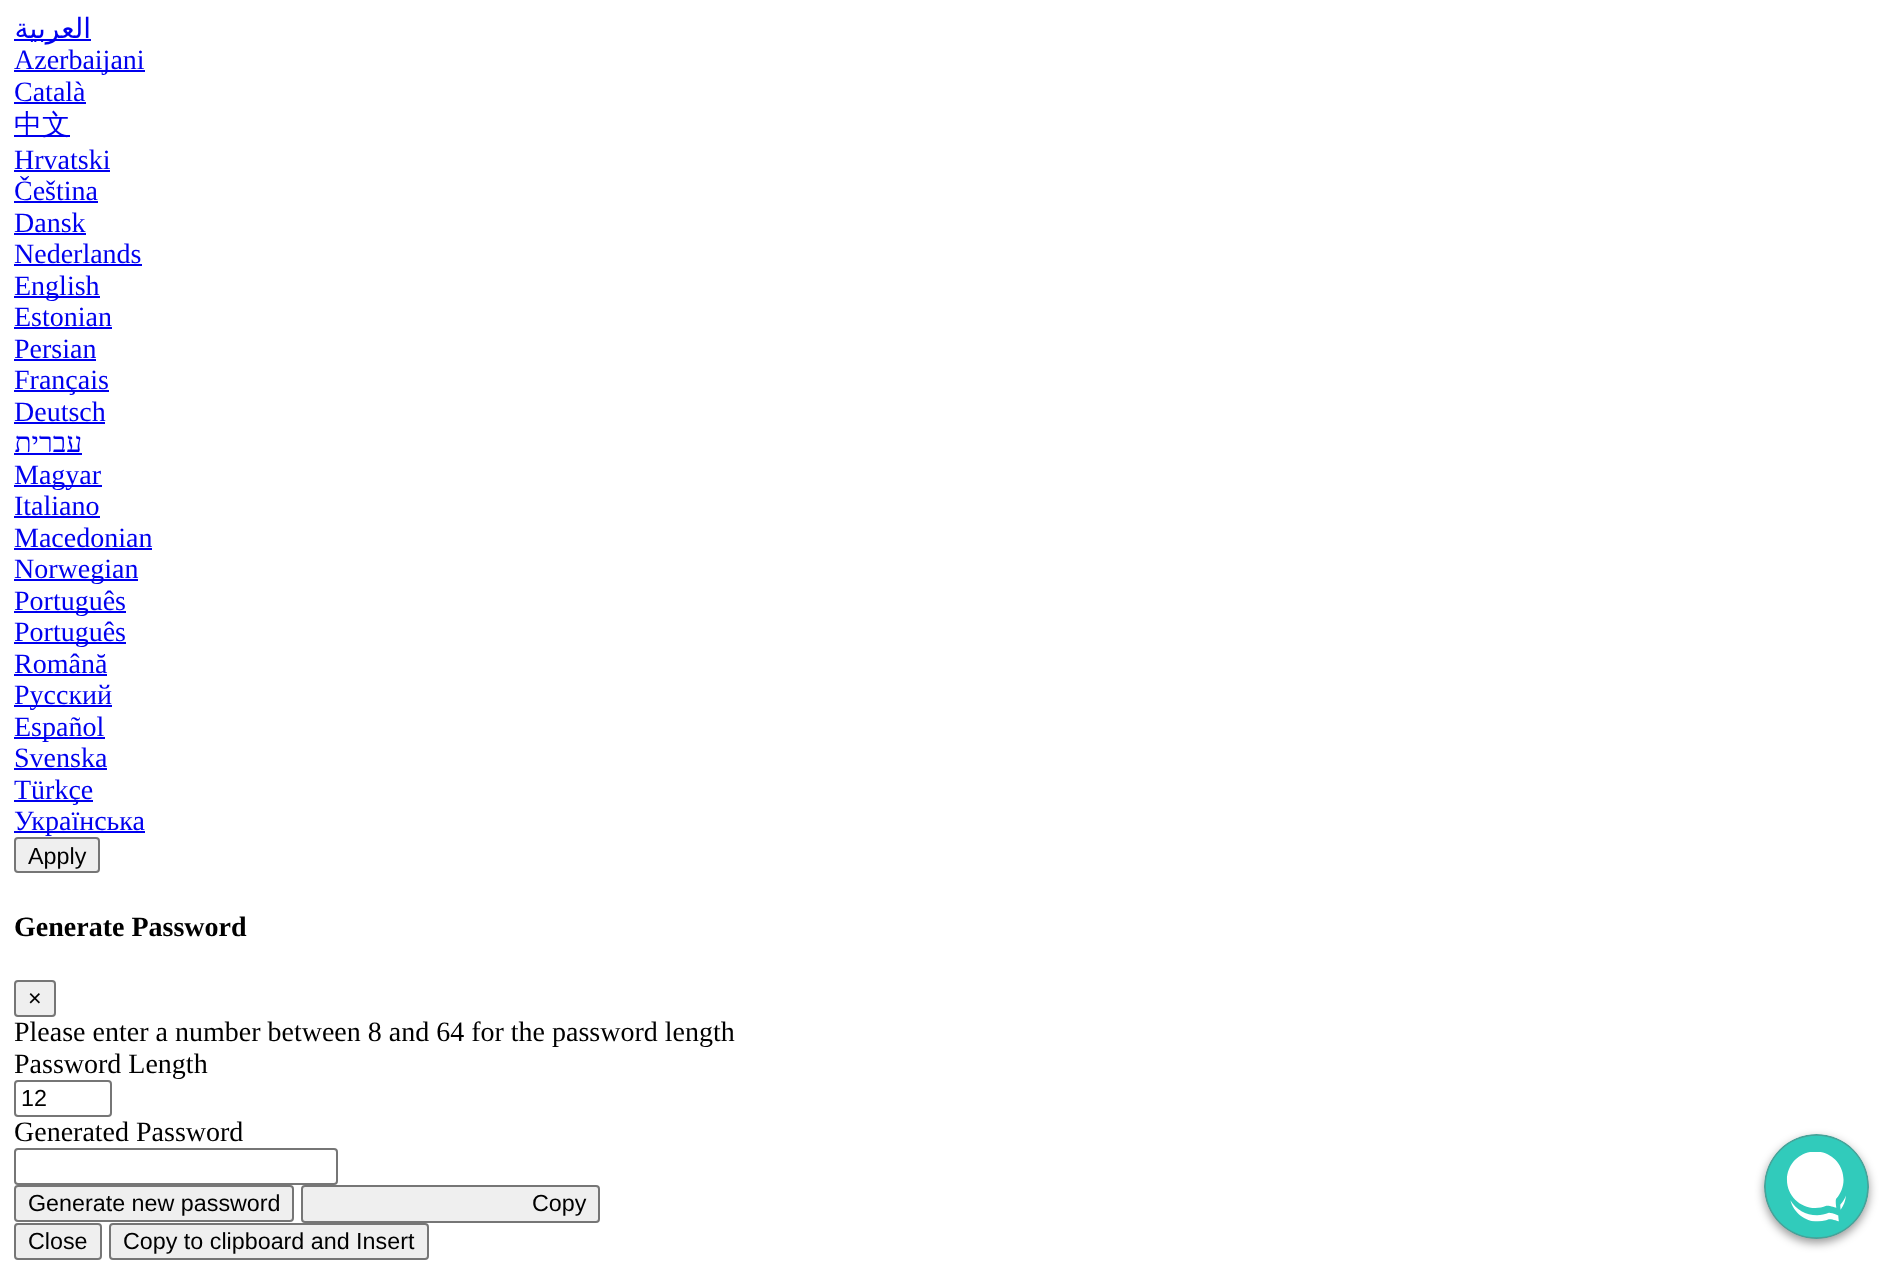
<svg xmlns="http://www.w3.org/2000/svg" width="1903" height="1273">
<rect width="100%" height="100%" fill="#fff"/>
<rect x="14" y="39" width="77" height="2" fill="#00e"/>
<text x="91" y="38" style="font-family:DejaVu Sans;font-size:28px;direction:rtl;fill:#00e">العربية</text>
<rect x="14" y="70" width="131" height="2" fill="#00e"/>
<text x="14" y="69" style="font-family:Liberation Serif;font-size:28px;fill:#00e">Azerbaijani</text>
<text x="14" y="101" style="font-family:Liberation Serif;font-size:28px;fill:#00e">Català</text>
<rect x="14" y="102" width="72" height="2" fill="#00e"/>
<rect x="14" y="135" width="56" height="2" fill="#00e"/>
<text x="14" y="134" style="font-family:WenQuanYi Zen Hei;font-size:28px;font-weight:500;fill:#00e">中文</text>
<text x="14" y="169" style="font-family:Liberation Serif;font-size:28px;fill:#00e">Hrvatski</text>
<rect x="14" y="170" width="96" height="2" fill="#00e"/>
<text x="14" y="200" style="font-family:Liberation Serif;font-size:28px;fill:#00e">Čeština</text>
<rect x="14" y="201" width="84" height="2" fill="#00e"/>
<text x="14" y="232" style="font-family:Liberation Serif;font-size:28px;fill:#00e">Dansk</text>
<rect x="14" y="233" width="72" height="2" fill="#00e"/>
<text x="14" y="263" style="font-family:Liberation Serif;font-size:28px;fill:#00e">Nederlands</text>
<rect x="14" y="264" width="128" height="2" fill="#00e"/>
<rect x="14" y="296" width="86" height="2" fill="#00e"/>
<text x="14" y="295" style="font-family:Liberation Serif;font-size:28px;fill:#00e">English</text>
<text x="14" y="326" style="font-family:Liberation Serif;font-size:28px;fill:#00e">Estonian</text>
<rect x="14" y="327" width="98" height="2" fill="#00e"/>
<text x="14" y="358" style="font-family:Liberation Serif;font-size:28px;fill:#00e">Persian</text>
<rect x="14" y="359" width="82" height="2" fill="#00e"/>
<rect x="14" y="390" width="95" height="2" fill="#00e"/>
<text x="14" y="389" style="font-family:Liberation Serif;font-size:28px;fill:#00e">Français</text>
<text x="14" y="421" style="font-family:Liberation Serif;font-size:28px;fill:#00e">Deutsch</text>
<rect x="14" y="422" width="91" height="2" fill="#00e"/>
<text x="82" y="452" style="font-family:Liberation Serif;font-size:28px;direction:rtl;fill:#00e">עברית</text>
<rect x="14" y="453" width="68" height="2" fill="#00e"/>
<rect x="14" y="485" width="88" height="2" fill="#00e"/>
<text x="14" y="484" style="font-family:Liberation Serif;font-size:28px;fill:#00e">Magyar</text>
<text x="14" y="515" style="font-family:Liberation Serif;font-size:28px;fill:#00e">Italiano</text>
<rect x="14" y="516" width="86" height="2" fill="#00e"/>
<text x="14" y="547" style="font-family:Liberation Serif;font-size:28px;fill:#00e">Macedonian</text>
<rect x="14" y="548" width="138" height="2" fill="#00e"/>
<rect x="14" y="579" width="124" height="2" fill="#00e"/>
<text x="14" y="578" style="font-family:Liberation Serif;font-size:28px;fill:#00e">Norwegian</text>
<rect x="14" y="611" width="112" height="2" fill="#00e"/>
<text x="14" y="610" style="font-family:Liberation Serif;font-size:28px;fill:#00e">Português</text>
<rect x="14" y="642" width="112" height="2" fill="#00e"/>
<text x="14" y="641" style="font-family:Liberation Serif;font-size:28px;fill:#00e">Português</text>
<text x="14" y="673" style="font-family:Liberation Serif;font-size:28px;fill:#00e">Română</text>
<rect x="14" y="674" width="93" height="2" fill="#00e"/>
<rect x="14" y="705" width="98" height="2" fill="#00e"/>
<text x="14" y="704" style="font-family:Liberation Serif;font-size:28px;fill:#00e">Русский</text>
<rect x="14" y="737" width="91" height="2" fill="#00e"/>
<text x="14" y="736" style="font-family:Liberation Serif;font-size:28px;fill:#00e">Español</text>
<text x="14" y="767" style="font-family:Liberation Serif;font-size:28px;fill:#00e">Svenska</text>
<rect x="14" y="768" width="93" height="2" fill="#00e"/>
<rect x="14" y="800" width="79" height="2" fill="#00e"/>
<text x="14" y="799" style="font-family:Liberation Serif;font-size:28px;fill:#00e">Türkçe</text>
<rect x="14" y="831" width="131" height="2" fill="#00e"/>
<text x="14" y="830" style="font-family:Liberation Serif;font-size:28px;fill:#00e">Українська</text>
<rect x="15" y="838" width="84" height="34" rx="3" fill="#efefef" stroke="#767676" stroke-width="2"/>
<text x="28" y="864" style="font-family:Liberation Sans;font-size:23.3px;fill:#000">Apply</text>
<text x="14" y="936" style="font-family:Liberation Serif;font-size:28px;font-weight:bold;fill:#000">Generate Password</text>
<rect x="15" y="981" width="40" height="35" rx="3" fill="#efefef" stroke="#767676" stroke-width="2"/>
<text x="28" y="1006" style="font-family:Liberation Sans;font-size:23.3px;fill:#000">×</text>
<text x="14" y="1041" style="font-family:Liberation Serif;font-size:28px;fill:#000">Please enter a number between 8 and 64 for the password length</text>
<text x="14" y="1073" style="font-family:Liberation Serif;font-size:28px;fill:#000">Password Length</text>
<rect x="15" y="1081" width="96" height="35" rx="3" fill="none" stroke="#767676" stroke-width="2"/>
<text x="21" y="1106" style="font-family:Liberation Sans;font-size:23.3px;fill:#000">12</text>
<text x="14" y="1141" style="font-family:Liberation Serif;font-size:28px;fill:#000">Generated Password</text>
<rect x="15" y="1149" width="322" height="35" rx="3" fill="none" stroke="#767676" stroke-width="2"/>
<rect x="15" y="1186" width="278" height="35" rx="3" fill="#efefef" stroke="#767676" stroke-width="2"/>
<text x="28" y="1211" style="font-family:Liberation Sans;font-size:23.3px;fill:#000">Generate new password</text>
<rect x="302" y="1186" width="297" height="36" rx="3" fill="#efefef" stroke="#767676" stroke-width="2"/>
<text x="532" y="1211" style="font-family:Liberation Sans;font-size:23.3px;fill:#000">Copy</text>
<rect x="15" y="1224" width="86" height="35" rx="3" fill="#efefef" stroke="#767676" stroke-width="2"/>
<text x="28" y="1249" style="font-family:Liberation Sans;font-size:23.3px;fill:#000">Close</text>
<rect x="110" y="1224" width="318" height="35" rx="3" fill="#efefef" stroke="#767676" stroke-width="2"/>
<text x="123" y="1249" style="font-family:Liberation Sans;font-size:23.3px;fill:#000">Copy to clipboard and Insert</text>
<rect x="1764" y="1138" width="105" height="105" rx="52.5" fill="#00000066" filter="blur(5px)"/>
<image x="1764" y="1134" width="105" height="105" href="media/1.png"/>
</svg>
